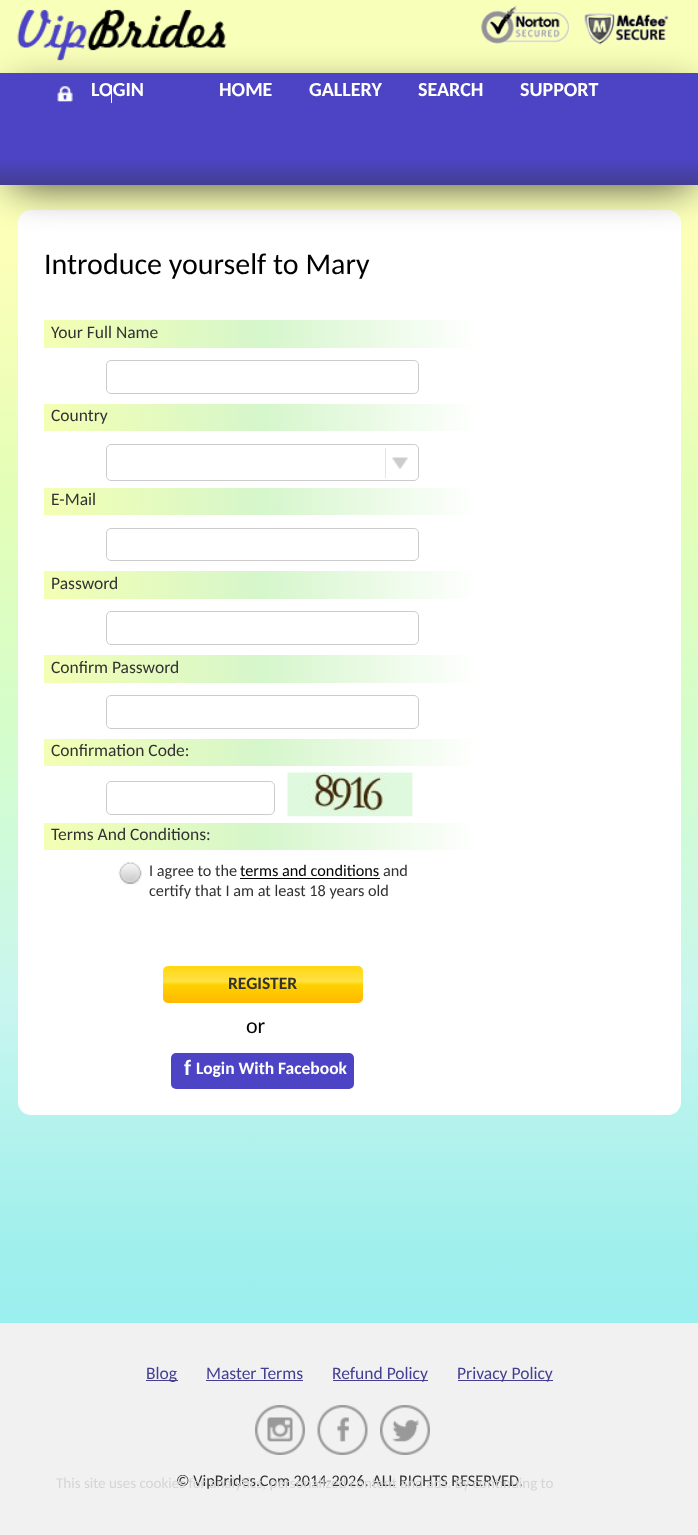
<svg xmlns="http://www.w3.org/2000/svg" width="698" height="1535">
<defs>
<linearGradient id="g1" gradientUnits="userSpaceOnUse" x1="349" y1="0" x2="349" y2="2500"><stop offset="0" stop-color="#f8ffb9"/><stop offset="0.1" stop-color="#fcffb8"/><stop offset="0.2" stop-color="#e3feb7"/><stop offset="0.3" stop-color="#d3fdcd"/><stop offset="0.4" stop-color="#c9f6ef"/><stop offset="0.5" stop-color="#9fefec"/><stop offset="0.6" stop-color="#95eff8"/><stop offset="0.7" stop-color="#a9f6ff"/><stop offset="0.8" stop-color="#b8f7ff"/><stop offset="1" stop-color="#bcf8ff"/><stop offset="1" stop-color="#e6f4fa"/><stop offset="1" stop-color="#fff"/></linearGradient>
<linearGradient id="g2" gradientUnits="userSpaceOnUse" x1="349" y1="72" x2="349" y2="185"><stop offset="0.77" stop-color="#4c44c4"/><stop offset="1" stop-color="#433e92"/></linearGradient>
<linearGradient id="g3" gradientUnits="userSpaceOnUse" x1="44" y1="334" x2="481" y2="334"><stop offset="0" stop-color="#f3ffb3"/><stop offset="0.5" stop-color="#d5f6cb"/><stop offset="1" stop-color="#fff"/></linearGradient>
<linearGradient id="g4" gradientUnits="userSpaceOnUse" x1="44" y1="418" x2="481" y2="418"><stop offset="0" stop-color="#f3ffb3"/><stop offset="0.5" stop-color="#d5f6cb"/><stop offset="1" stop-color="#fff"/></linearGradient>
<linearGradient id="g5" gradientUnits="userSpaceOnUse" x1="44" y1="501" x2="481" y2="501"><stop offset="0" stop-color="#f3ffb3"/><stop offset="0.5" stop-color="#d5f6cb"/><stop offset="1" stop-color="#fff"/></linearGradient>
<linearGradient id="g6" gradientUnits="userSpaceOnUse" x1="44" y1="585" x2="481" y2="585"><stop offset="0" stop-color="#f3ffb3"/><stop offset="0.5" stop-color="#d5f6cb"/><stop offset="1" stop-color="#fff"/></linearGradient>
<linearGradient id="g7" gradientUnits="userSpaceOnUse" x1="44" y1="669" x2="481" y2="669"><stop offset="0" stop-color="#f3ffb3"/><stop offset="0.5" stop-color="#d5f6cb"/><stop offset="1" stop-color="#fff"/></linearGradient>
<linearGradient id="g8" gradientUnits="userSpaceOnUse" x1="44" y1="753" x2="481" y2="753"><stop offset="0" stop-color="#f3ffb3"/><stop offset="0.5" stop-color="#d5f6cb"/><stop offset="1" stop-color="#fff"/></linearGradient>
<linearGradient id="g9" gradientUnits="userSpaceOnUse" x1="44" y1="836" x2="481" y2="836"><stop offset="0" stop-color="#f3ffb3"/><stop offset="0.5" stop-color="#d5f6cb"/><stop offset="1" stop-color="#fff"/></linearGradient>
<linearGradient id="g10" gradientUnits="userSpaceOnUse" x1="263" y1="966" x2="263" y2="1003"><stop offset="0" stop-color="#ffd70f"/><stop offset="0.1" stop-color="#ffd91b"/><stop offset="0.2" stop-color="#ffdc2a"/><stop offset="0.3" stop-color="#ffde38"/><stop offset="0.42" stop-color="#ffe145"/><stop offset="0.5" stop-color="#ffd500"/><stop offset="0.51" stop-color="#ffd000"/><stop offset="0.75" stop-color="#ffc600"/><stop offset="0.75" stop-color="#ffc500"/><stop offset="1" stop-color="#ffb800"/></linearGradient>
</defs>
<rect width="100%" height="100%" fill="#fff"/>
<rect width="698" height="1323" fill="url(#g1)"/>
<image x="17" y="9" width="210" height="52" href="media/1.png"/>
<image x="481" y="6" width="88" height="38" href="media/2.png"/>
<image x="584" y="13" width="85" height="32" href="media/3.png"/>
<rect x="18" y="210" width="663" height="905" rx="13" fill="#fff"/>
<rect x="13" y="93" width="678" height="92" fill="#000000bf" filter="blur(20px)"/>
<rect y="73" width="698" height="112" fill="url(#g2)"/>
<rect x="111" y="85" width="1" height="18" fill="#fff"/>
<image x="57" y="86" width="16" height="16" href="media/4.png"/>
<text x="91" y="96" style="font-family:Carlito;font-size:20px;font-weight:bold;fill:#fff">LOGIN</text>
<text x="219" y="96" style="font-family:Carlito;font-size:20px;font-weight:bold;fill:#fff">HOME</text>
<text x="309" y="96" style="font-family:Carlito;font-size:20px;font-weight:bold;fill:#fff">GALLERY</text>
<text x="418" y="96" style="font-family:Carlito;font-size:20px;font-weight:bold;fill:#fff">SEARCH</text>
<text x="520" y="96" style="font-family:Carlito;font-size:20px;font-weight:bold;fill:#fff">SUPPORT</text>
<text x="44" y="274" style="font-family:Carlito;font-size:30px;fill:#000">Introduce yourself to Mary</text>
<rect x="44" y="320" width="427" height="28" fill="url(#g3)"/>
<text x="51" y="338" style="font-family:Carlito;font-size:17.5px;fill:#323232">Your Full Name</text>
<rect x="106.5" y="360.5" width="312" height="33" rx="4.5" fill="none" stroke="#ccc"/>
<rect x="44" y="404" width="427" height="27" fill="url(#g4)"/>
<text x="51" y="421" style="font-family:Carlito;font-size:17.5px;fill:#323232">Country</text>
<rect x="106.5" y="444.5" width="312" height="36" rx="4.5" fill="none" stroke="#ccc"/>
<image x="392" y="457" width="16" height="12" href="media/5.png"/>
<rect x="385" y="448" width="1" height="30" fill="#e5e5e5"/>
<rect x="44" y="488" width="427" height="27" fill="url(#g5)"/>
<text x="51" y="505" style="font-family:Carlito;font-size:17.5px;fill:#323232">E-Mail</text>
<rect x="106.5" y="528.5" width="312" height="32" rx="4.5" fill="none" stroke="#ccc"/>
<rect x="44" y="571" width="427" height="28" fill="url(#g6)"/>
<text x="51" y="589" style="font-family:Carlito;font-size:17.5px;fill:#323232">Password</text>
<rect x="106.5" y="611.5" width="312" height="33" rx="4.5" fill="none" stroke="#ccc"/>
<rect x="44" y="655" width="427" height="28" fill="url(#g7)"/>
<text x="51" y="673" style="font-family:Carlito;font-size:17.5px;fill:#323232">Confirm Password</text>
<rect x="106.5" y="695.5" width="312" height="33" rx="4.5" fill="none" stroke="#ccc"/>
<rect x="44" y="739" width="427" height="27" fill="url(#g8)"/>
<text x="51" y="756" style="font-family:Carlito;font-size:17.5px;fill:#323232">Confirmation Code:</text>
<rect x="106.5" y="781.5" width="168" height="33" rx="4.5" fill="none" stroke="#ccc"/>
<image x="287" y="772" width="126" height="45" href="media/6.png"/>
<rect x="44" y="823" width="427" height="27" fill="url(#g9)"/>
<text x="51" y="840" style="font-family:Carlito;font-size:17.5px;fill:#323232">Terms And Conditions:</text>
<image x="118" y="862" width="24" height="23" href="media/7.png"/>
<text x="149" y="876" style="font-family:Carlito;font-size:16.25px;fill:#323232">I agree to the</text>
<text x="240" y="876" style="font-family:Carlito;font-size:16.25px;fill:#000">terms and conditions</text>
<rect x="240" y="878" width="140" height="1" fill="#000"/>
<text x="383" y="876" style="font-family:Carlito;font-size:16.25px;fill:#323232">and</text>
<text x="149" y="896" style="font-family:Carlito;font-size:16.25px;fill:#323232">certify that I am at least 18 years old</text>
<rect x="163" y="966" width="200" height="37" rx="5" fill="url(#g10)"/>
<text x="228" y="989" style="font-family:Carlito;font-size:17.5px;font-weight:bold;fill:#323232">REGISTER</text>
<text x="246" y="1033" style="font-family:Carlito;font-size:22px;fill:#000">or</text>
<rect x="171" y="1053" width="183" height="36" rx="5" fill="#4c44c4"/>
<text x="184" y="1075" style="font-family:Carlito;font-size:22px;font-weight:bold;fill:#fff">f</text>
<text x="196" y="1074" style="font-family:Carlito;font-size:17.5px;font-weight:bold;fill:#fff">Login With Facebook</text>
<rect y="1323" width="698" height="212" fill="#f1f1f1"/>
<rect x="146" y="1380" width="32" height="1" fill="#433e92"/>
<text x="146" y="1379" style="font-family:Carlito;font-size:17.5px;fill:#433e92">Blog</text>
<text x="206" y="1379" style="font-family:Carlito;font-size:17.5px;fill:#433e92">Master Terms</text>
<rect x="206" y="1380" width="97" height="1" fill="#433e92"/>
<rect x="333" y="1380" width="95" height="1" fill="#433e92"/>
<text x="332" y="1379" style="font-family:Carlito;font-size:17.5px;fill:#433e92">Refund Policy</text>
<rect x="458" y="1380" width="95" height="1" fill="#433e92"/>
<text x="457" y="1379" style="font-family:Carlito;font-size:17.5px;fill:#433e92">Privacy Policy</text>
<image x="255" y="1405" width="50" height="50" href="media/8.png"/>
<image x="317" y="1405" width="51" height="50" href="media/9.png"/>
<image x="380" y="1405" width="50" height="50" href="media/10.png"/>
<text x="176" y="1486" style="font-family:Carlito;font-size:16.25px;fill:#323232">© VipBrides.Com 2014-2026. ALL RIGHTS RESERVED.</text>
<text x="56" y="1488" style="font-family:Carlito;font-size:15px;fill:#d5d5d5">This site uses cookies for analytics, personalized content and ads. By continuing to</text>
</svg>
